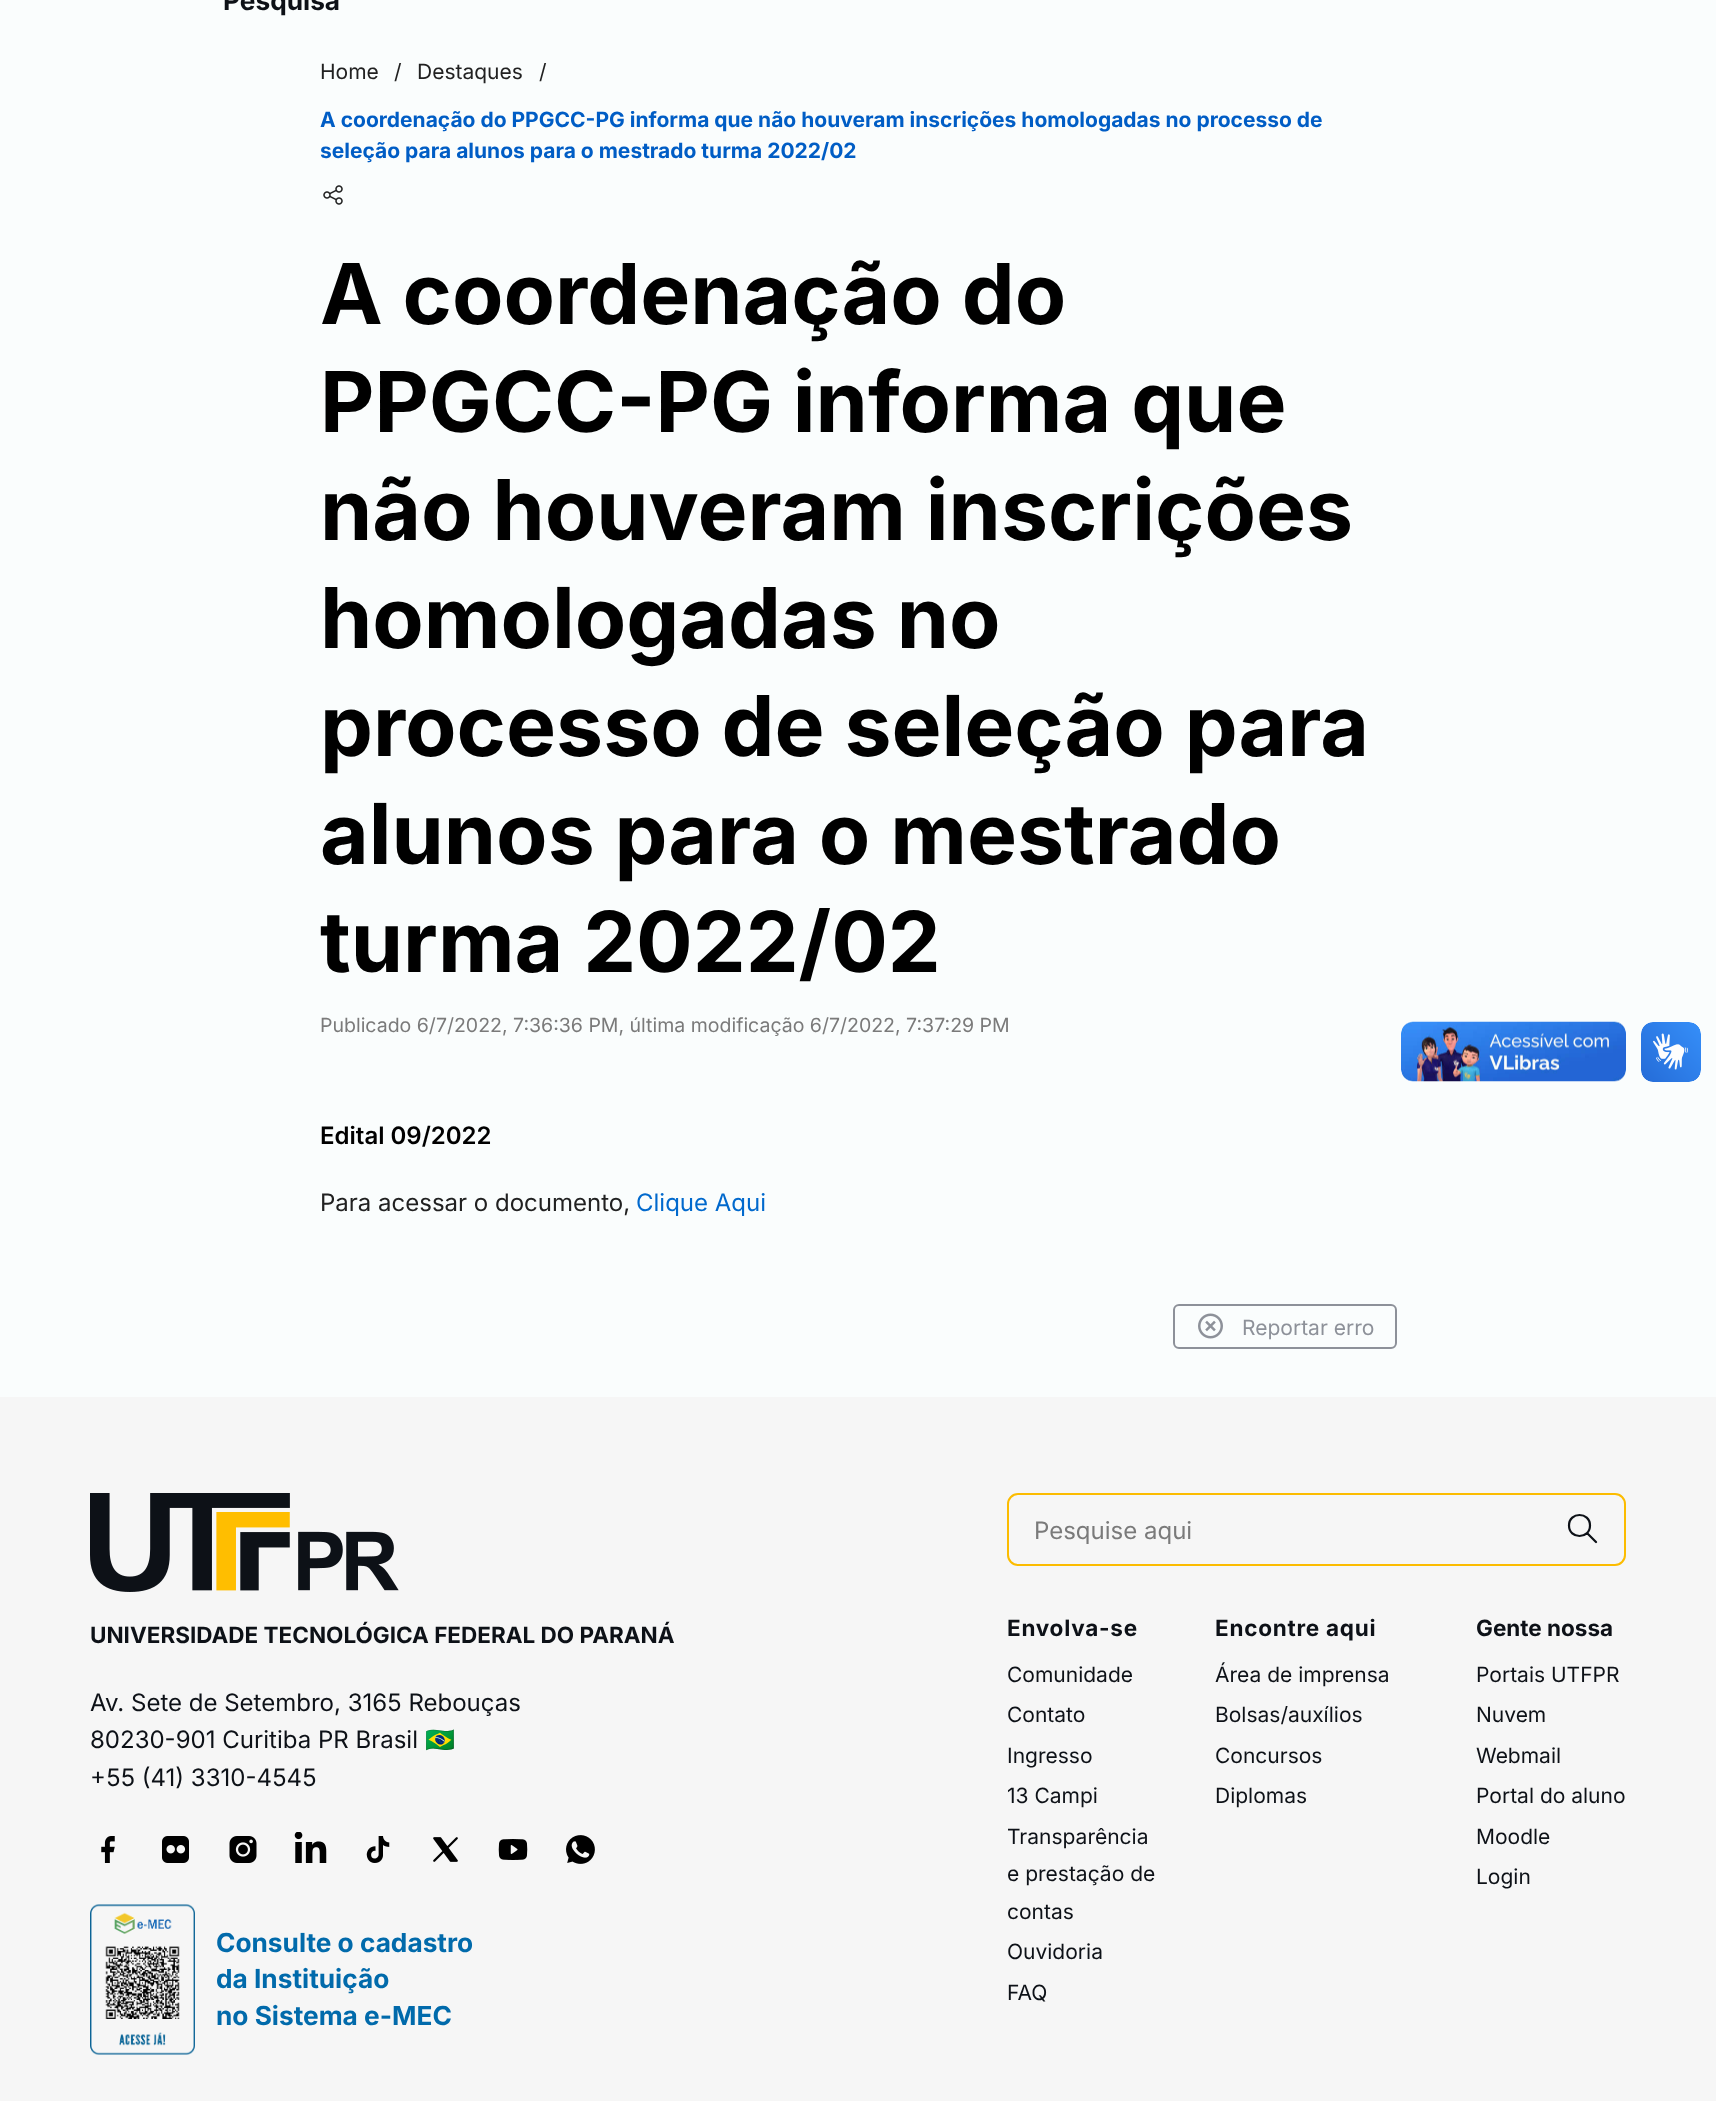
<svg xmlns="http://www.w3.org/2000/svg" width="1716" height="2101">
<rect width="100%" height="100%" fill="#fafdfd"/>
<text x="223" y="10" style="font-family:Inter;font-size:26.25px;font-weight:bold;fill:#0d1117">Pesquisa</text>
<text x="320" y="79" style="font-family:Inter;font-size:21px;fill:#212121">Home</text>
<text x="394" y="79" style="font-family:Inter;font-size:21px;fill:#212121">/</text>
<text x="417" y="79" style="font-family:Inter;font-size:21px;fill:#212121">Destaques</text>
<text x="539" y="79" style="font-family:Inter;font-size:21px;fill:#212121">/</text>
<text x="320" y="127" style="font-family:Inter;font-size:21px;font-weight:bold;fill:#005dc5">A coordenação do PPGCC-PG informa que não houveram inscrições homologadas no processo de</text>
<text x="320" y="158" style="font-family:Inter;font-size:21px;font-weight:bold;fill:#005dc5">seleção para alunos para o mestrado turma 2022/02</text>
<image x="323" y="185" width="20" height="20" href="media/1.png"/>
<text x="320" y="324" style="font-family:Inter;font-size:84px;font-weight:bold;fill:#000">A coordenação do</text>
<text x="320" y="432" style="font-family:Inter;font-size:84px;font-weight:bold;fill:#000">PPGCC-PG informa que</text>
<text x="320" y="540" style="font-family:Inter;font-size:84px;font-weight:bold;fill:#000">não houveram inscrições</text>
<text x="320" y="648" style="font-family:Inter;font-size:84px;font-weight:bold;fill:#000">homologadas no</text>
<text x="320" y="756" style="font-family:Inter;font-size:84px;font-weight:bold;fill:#000">processo de seleção para</text>
<text x="320" y="864" style="font-family:Inter;font-size:84px;font-weight:bold;fill:#000">alunos para o mestrado</text>
<text x="320" y="972" style="font-family:Inter;font-size:84px;font-weight:bold;fill:#000">turma 2022/02</text>
<text x="320" y="1032" style="font-family:Inter;font-size:19.5px;fill:#7a7a7a">Publicado 6/7/2022, 7:36:36 PM, última modificação 6/7/2022, 7:37:29 PM</text>
<text x="320" y="1144" style="font-family:Inter;font-size:24px;font-weight:600;fill:#000">Edital 09/2022</text>
<text x="320" y="1211" style="font-family:Inter;font-size:24px;fill:#212121">Para acessar o documento,</text>
<text x="636" y="1211" style="font-family:Inter;font-size:24px;fill:#0169cd">Clique Aqui</text>
<rect x="1174" y="1305" width="222" height="43" rx="5" fill="none" stroke="#8d9199" stroke-width="2"/>
<image x="1198" y="1313" width="25" height="26" href="media/2.png"/>
<text x="1242" y="1335" style="font-family:Inter;font-size:21px;fill:#8d9199">Reportar erro</text>
<rect y="1397" width="1716" height="704" fill="#f6f6f6"/>
<image x="90" y="1493" width="309" height="99" href="media/3.png"/>
<text x="90" y="1643" style="font-family:Inter;font-size:22.5px;font-weight:bold;fill:#0d1117">UNIVERSIDADE TECNOLÓGICA FEDERAL DO PARANÁ</text>
<text x="90" y="1711" style="font-family:Inter;font-size:24px;fill:#0d1117">Av. Sete de Setembro, 3165 Rebouças</text>
<text x="90" y="1748" style="font-family:Inter;font-size:24px;fill:#0d1117">80230-901 Curitiba PR Brasil</text>
<text x="425" y="1748" style="font-family:Noto Color Emoji;font-size:24px;fill:#0d1117">🇧🇷</text>
<text x="90" y="1786" style="font-family:Inter;font-size:24px;fill:#0d1117">+55 (41) 3310-4545</text>
<image x="101" y="1836" width="14" height="27" href="media/4.png"/>
<image x="162" y="1836" width="27" height="27" href="media/5.png"/>
<image x="229" y="1836" width="28" height="27" href="media/6.png"/>
<image x="294" y="1832" width="33" height="31" href="media/7.png"/>
<image x="366" y="1836" width="24" height="27" href="media/8.png"/>
<image x="433" y="1837" width="25" height="25" href="media/9.png"/>
<image x="498" y="1839" width="30" height="21" href="media/10.png"/>
<image x="566" y="1835" width="29" height="29" href="media/11.png"/>
<image x="90" y="1904" width="105" height="151" href="media/12.png"/>
<text x="216" y="1952" style="font-family:Inter;font-size:26.25px;font-weight:bold;fill:#016aab">Consulte o cadastro</text>
<text x="216" y="1988" style="font-family:Inter;font-size:26.25px;font-weight:bold;fill:#016aab">da Instituição</text>
<text x="216" y="2025" style="font-family:Inter;font-size:26.25px;font-weight:bold;fill:#016aab">no Sistema e-MEC</text>
<rect x="1008" y="1494" width="617" height="71" rx="10" fill="none" stroke="#fcbc00" stroke-width="2"/>
<text x="1034" y="1539" style="font-family:Inter;font-size:24px;fill:#7a7a7a">Pesquise aqui</text>
<path d="M1596 1542l-9-9m-18-7.5c0 14 21 14 21 0c0-14-21-14-21 0z" fill="none" stroke="#0d1117" stroke-width="2.2" stroke-linecap="round" stroke-linejoin="round"/>
<text x="1007" y="1636" style="font-family:Inter;font-size:22.5px;font-weight:bold;letter-spacing:0.75px;fill:#0d1117">Envolva-se</text>
<text x="1007" y="1682" style="font-family:Inter;font-size:21px;fill:#0d1117">Comunidade</text>
<text x="1007" y="1722" style="font-family:Inter;font-size:21px;fill:#0d1117">Contato</text>
<text x="1007" y="1763" style="font-family:Inter;font-size:21px;fill:#0d1117">Ingresso</text>
<text x="1007" y="1803" style="font-family:Inter;font-size:21px;fill:#0d1117">13 Campi</text>
<text x="1007" y="1844" style="font-family:Inter;font-size:21px;fill:#0d1117">Transparência</text>
<text x="1007" y="1881" style="font-family:Inter;font-size:21px;fill:#0d1117">e prestação de</text>
<text x="1007" y="1919" style="font-family:Inter;font-size:21px;fill:#0d1117">contas</text>
<text x="1007" y="1959" style="font-family:Inter;font-size:21px;fill:#0d1117">Ouvidoria</text>
<text x="1007" y="2000" style="font-family:Inter;font-size:21px;fill:#0d1117">FAQ</text>
<text x="1215" y="1636" style="font-family:Inter;font-size:22.5px;font-weight:bold;letter-spacing:0.75px;fill:#0d1117">Encontre aqui</text>
<text x="1215" y="1682" style="font-family:Inter;font-size:21px;fill:#0d1117">Área de imprensa</text>
<text x="1215" y="1722" style="font-family:Inter;font-size:21px;fill:#0d1117">Bolsas/auxílios</text>
<text x="1215" y="1763" style="font-family:Inter;font-size:21px;fill:#0d1117">Concursos</text>
<text x="1215" y="1803" style="font-family:Inter;font-size:21px;fill:#0d1117">Diplomas</text>
<text x="1476" y="1636" style="font-family:Inter;font-size:22.5px;font-weight:bold;fill:#0d1117">Gente nossa</text>
<text x="1476" y="1682" style="font-family:Inter;font-size:21px;fill:#0d1117">Portais UTFPR</text>
<text x="1476" y="1722" style="font-family:Inter;font-size:21px;fill:#0d1117">Nuvem</text>
<text x="1476" y="1763" style="font-family:Inter;font-size:21px;fill:#0d1117">Webmail</text>
<text x="1476" y="1803" style="font-family:Inter;font-size:21px;fill:#0d1117">Portal do aluno</text>
<text x="1476" y="1844" style="font-family:Inter;font-size:21px;fill:#0d1117">Moodle</text>
<text x="1476" y="1884" style="font-family:Inter;font-size:21px;fill:#0d1117">Login</text>
<image x="1401" y="1021" width="225" height="61" href="media/13.png"/>
<image x="1641" y="1022" width="60" height="60" href="media/14.png"/>
</svg>
